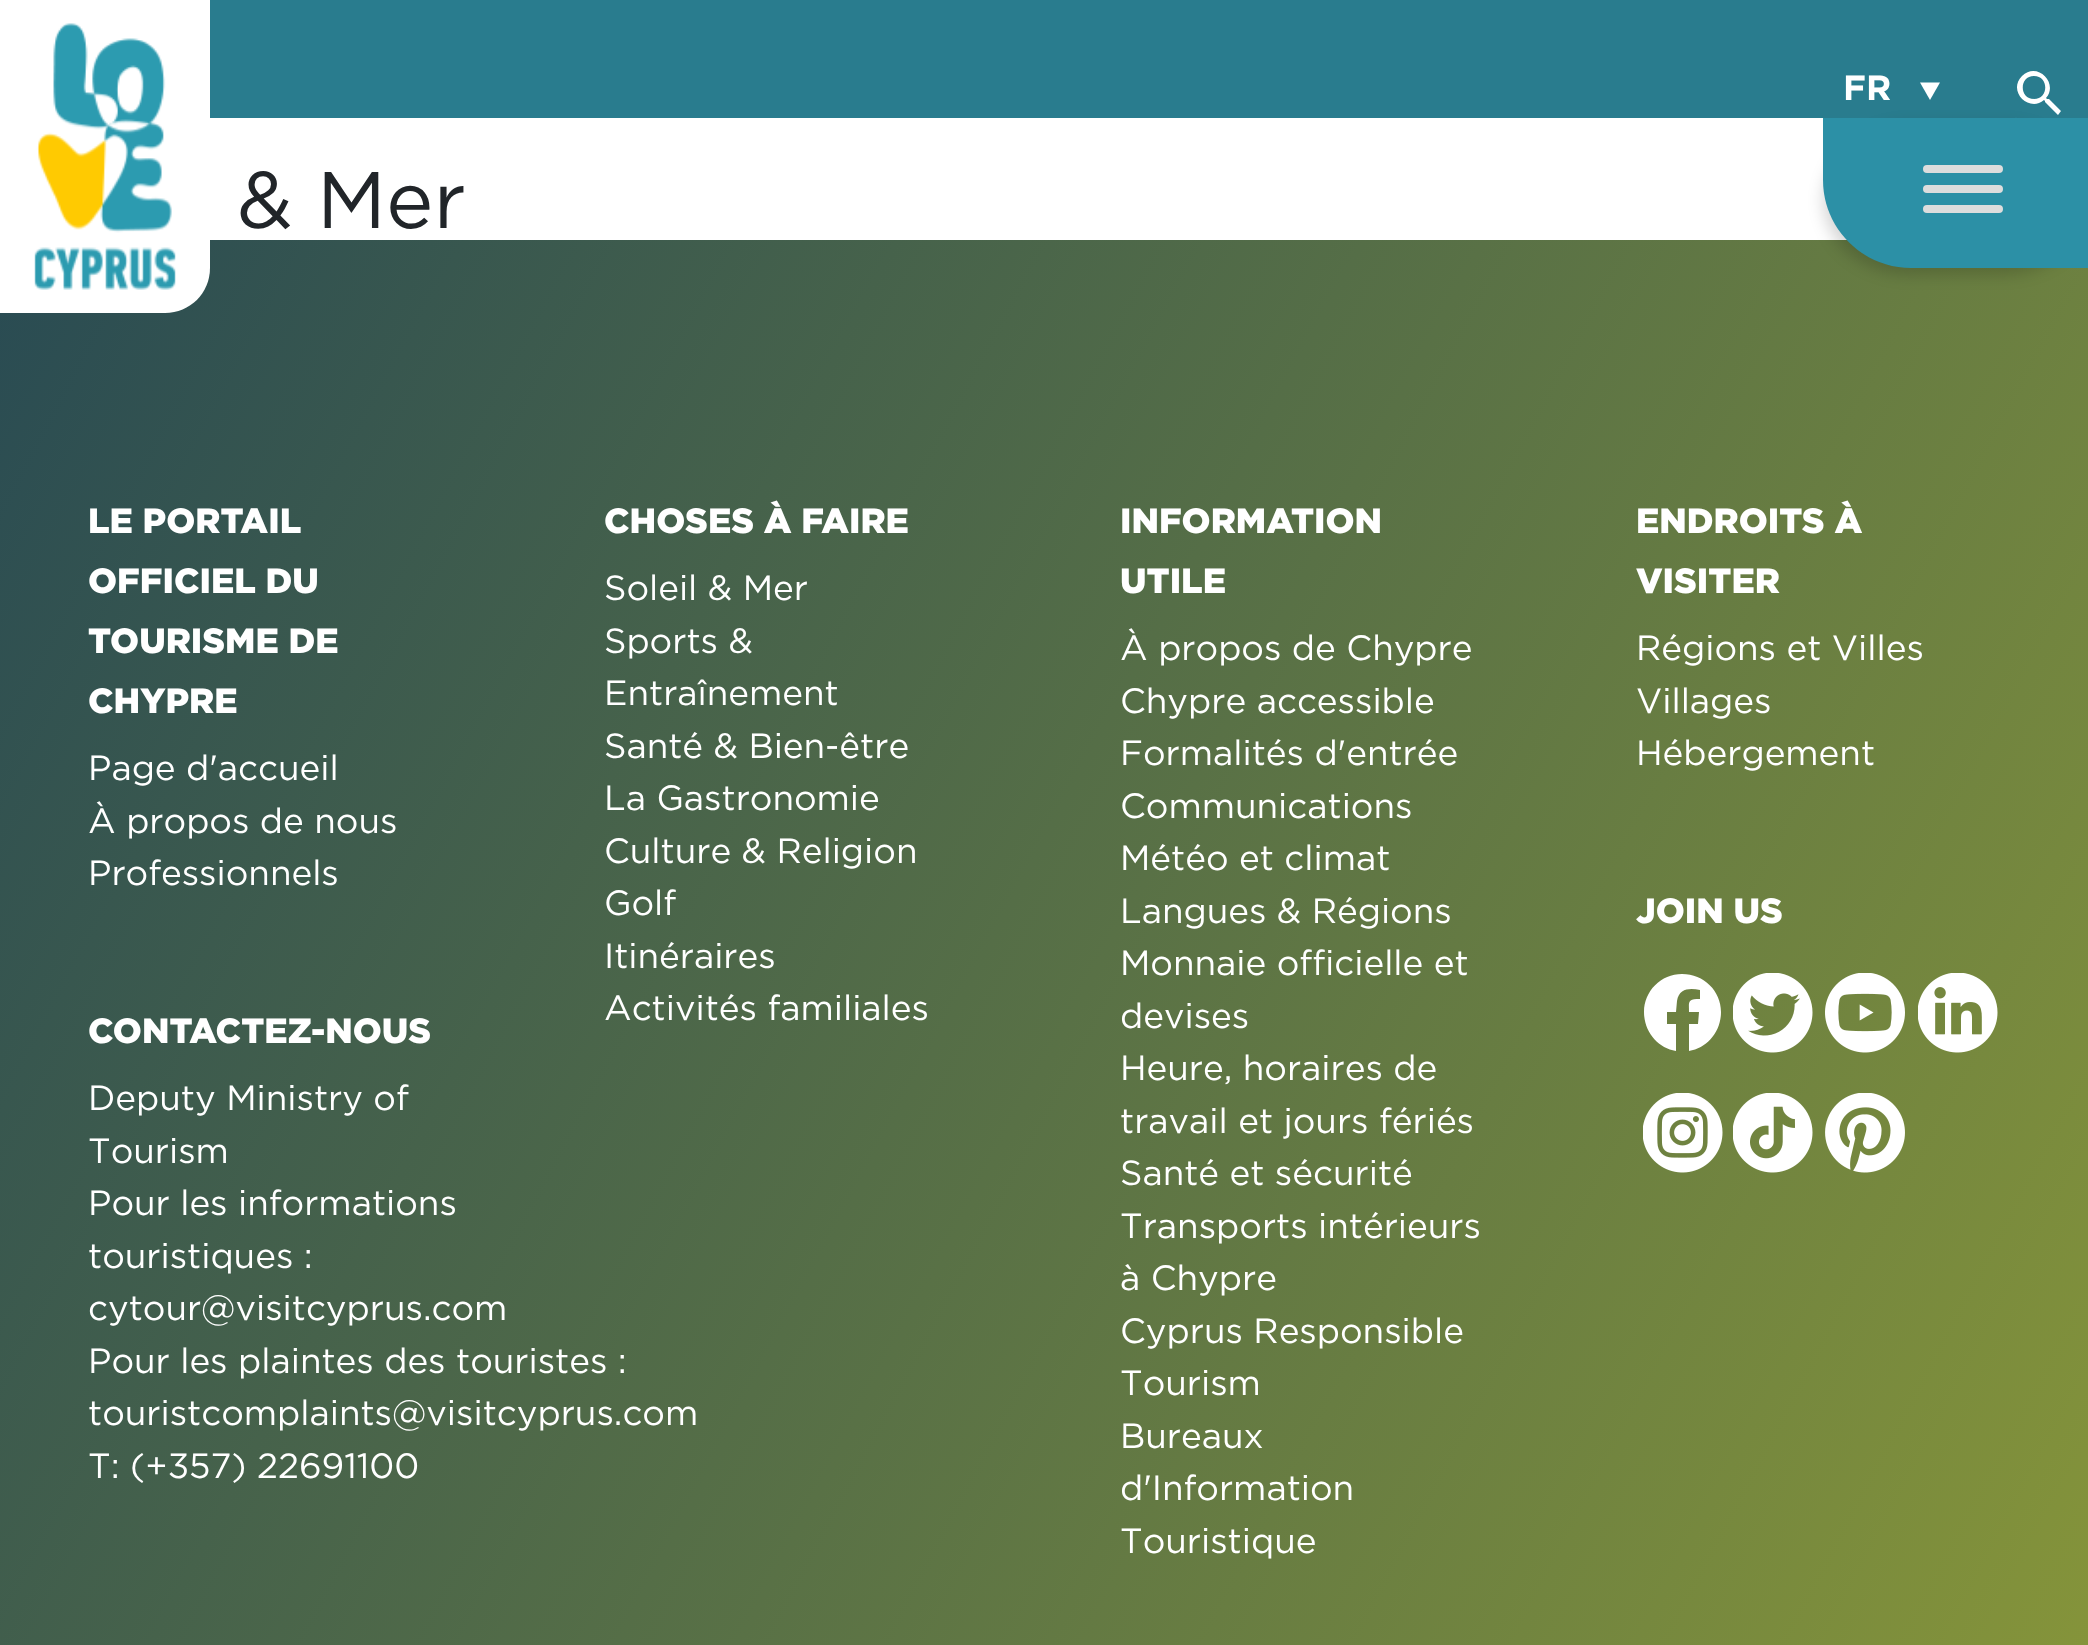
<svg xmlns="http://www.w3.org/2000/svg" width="2088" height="1645">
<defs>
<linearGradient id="g1" gradientUnits="userSpaceOnUse" x1="-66" y1="363" x2="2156" y2="1544"><stop offset="0" stop-color="#294b53"/><stop offset="1" stop-color="#85943a"/></linearGradient>
</defs>
<rect width="100%" height="100%" fill="#fff"/>
<rect x="210" width="1878" height="118" fill="#297c8e"/>
<rect y="240" width="2088" height="1405" fill="url(#g1)"/>
<path d="M0 0h210v268c0 25-20 45-45 45h-165z" fill="#fff"/>
<image x="34" y="23" width="142" height="267" href="media/1.png"/>
<text x="1843" y="100" style="font-family:Gotham;font-size:35px;font-weight:bold;fill:#fff">FR</text>
<path d="M1920 82.5h20l-10 17.5z" fill="#fff"/>
<rect x="1823" y="125" width="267" height="150" rx="88" fill="#00000029" filter="blur(7.5px)"/>
<rect x="2015" y="117" width="2" height="1" fill="#297c8e"/>
<path d="M2049 99h-2l-1-1c13-15-9-37-24-22c-15 15 7 37 22 24l1 1v1l13 13l3-4zm-15 0c-15 0-15-23 0-23c15 0 15 23 0 23z" fill="#fff"/>
<path d="M1823 118h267v150h-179c-48.5 0-88-39.5-88-88z" fill="#2c90a6"/>
<rect x="1923" y="165" width="80" height="8" rx="4" fill="#ddd"/>
<rect x="1923" y="185" width="80" height="8" rx="4" fill="#ddd"/>
<rect x="1923" y="205" width="80" height="8" rx="4" fill="#ddd"/>
<text x="237" y="228" style="font-family:Gotham;font-size:80px;fill:#212529">&amp; Mer</text>
<text x="88" y="533" style="font-family:Gotham;font-size:35px;font-weight:900;fill:#fff">LE PORTAIL</text>
<text x="88" y="593" style="font-family:Gotham;font-size:35px;font-weight:900;fill:#fff">OFFICIEL DU</text>
<text x="88" y="653" style="font-family:Gotham;font-size:35px;font-weight:900;fill:#fff">TOURISME DE</text>
<text x="88" y="713" style="font-family:Gotham;font-size:35px;font-weight:900;fill:#fff">CHYPRE</text>
<text x="88" y="780" style="font-family:Gotham;font-size:35px;fill:#fff">Page d'accueil</text>
<text x="88" y="833" style="font-family:Gotham;font-size:35px;fill:#fff">À propos de nous</text>
<text x="88" y="885" style="font-family:Gotham;font-size:35px;fill:#fff">Professionnels</text>
<text x="88" y="1043" style="font-family:Gotham;font-size:35px;font-weight:900;fill:#fff">CONTACTEZ-NOUS</text>
<text x="88" y="1110" style="font-family:Gotham;font-size:35px;fill:#fff">Deputy Ministry of</text>
<text x="88" y="1163" style="font-family:Gotham;font-size:35px;fill:#fff">Tourism</text>
<text x="88" y="1215" style="font-family:Gotham;font-size:35px;fill:#fff">Pour les informations</text>
<text x="88" y="1268" style="font-family:Gotham;font-size:35px;fill:#fff">touristiques :</text>
<text x="88" y="1320" style="font-family:Gotham;font-size:35px;fill:#fff">cytour@visitcyprus.com</text>
<text x="88" y="1373" style="font-family:Gotham;font-size:35px;fill:#fff">Pour les plaintes des touristes :</text>
<text x="88" y="1425" style="font-family:Gotham;font-size:35px;fill:#fff">touristcomplaints@visitcyprus.com</text>
<text x="88" y="1478" style="font-family:Gotham;font-size:35px;fill:#fff">T: (+357) 22691100</text>
<text x="604" y="533" style="font-family:Gotham;font-size:35px;font-weight:900;fill:#fff">CHOSES À FAIRE</text>
<text x="604" y="600" style="font-family:Gotham;font-size:35px;fill:#fff">Soleil &amp; Mer</text>
<text x="604" y="653" style="font-family:Gotham;font-size:35px;fill:#fff">Sports &amp;</text>
<text x="604" y="705" style="font-family:Gotham;font-size:35px;fill:#fff">Entraînement</text>
<text x="604" y="758" style="font-family:Gotham;font-size:35px;fill:#fff">Santé &amp; Bien-être</text>
<text x="604" y="810" style="font-family:Gotham;font-size:35px;fill:#fff">La Gastronomie</text>
<text x="604" y="863" style="font-family:Gotham;font-size:35px;fill:#fff">Culture &amp; Religion</text>
<text x="604" y="915" style="font-family:Gotham;font-size:35px;fill:#fff">Golf</text>
<text x="604" y="968" style="font-family:Gotham;font-size:35px;fill:#fff">Itinéraires</text>
<text x="604" y="1020" style="font-family:Gotham;font-size:35px;fill:#fff">Activités familiales</text>
<text x="1120" y="533" style="font-family:Gotham;font-size:35px;font-weight:900;fill:#fff">INFORMATION</text>
<text x="1120" y="593" style="font-family:Gotham;font-size:35px;font-weight:900;fill:#fff">UTILE</text>
<text x="1120" y="660" style="font-family:Gotham;font-size:35px;fill:#fff">À propos de Chypre</text>
<text x="1120" y="713" style="font-family:Gotham;font-size:35px;fill:#fff">Chypre accessible</text>
<text x="1120" y="765" style="font-family:Gotham;font-size:35px;fill:#fff">Formalités d'entrée</text>
<text x="1120" y="818" style="font-family:Gotham;font-size:35px;fill:#fff">Communications</text>
<text x="1120" y="870" style="font-family:Gotham;font-size:35px;fill:#fff">Météo et climat</text>
<text x="1120" y="923" style="font-family:Gotham;font-size:35px;fill:#fff">Langues &amp; Régions</text>
<text x="1120" y="975" style="font-family:Gotham;font-size:35px;fill:#fff">Monnaie officielle et</text>
<text x="1120" y="1028" style="font-family:Gotham;font-size:35px;fill:#fff">devises</text>
<text x="1120" y="1080" style="font-family:Gotham;font-size:35px;fill:#fff">Heure, horaires de</text>
<text x="1120" y="1133" style="font-family:Gotham;font-size:35px;fill:#fff">travail et jours fériés</text>
<text x="1120" y="1185" style="font-family:Gotham;font-size:35px;fill:#fff">Santé et sécurité</text>
<text x="1120" y="1238" style="font-family:Gotham;font-size:35px;fill:#fff">Transports intérieurs</text>
<text x="1120" y="1290" style="font-family:Gotham;font-size:35px;fill:#fff">à Chypre</text>
<text x="1120" y="1343" style="font-family:Gotham;font-size:35px;fill:#fff">Cyprus Responsible</text>
<text x="1120" y="1395" style="font-family:Gotham;font-size:35px;fill:#fff">Tourism</text>
<text x="1120" y="1448" style="font-family:Gotham;font-size:35px;fill:#fff">Bureaux</text>
<text x="1120" y="1500" style="font-family:Gotham;font-size:35px;fill:#fff">d'Information</text>
<text x="1120" y="1553" style="font-family:Gotham;font-size:35px;fill:#fff">Touristique</text>
<text x="1636" y="533" style="font-family:Gotham;font-size:35px;font-weight:900;fill:#fff">ENDROITS À</text>
<text x="1636" y="593" style="font-family:Gotham;font-size:35px;font-weight:900;fill:#fff">VISITER</text>
<text x="1636" y="660" style="font-family:Gotham;font-size:35px;fill:#fff">Régions et Villes</text>
<text x="1636" y="713" style="font-family:Gotham;font-size:35px;fill:#fff">Villages</text>
<text x="1636" y="765" style="font-family:Gotham;font-size:35px;fill:#fff">Hébergement</text>
<text x="1636" y="923" style="font-family:Gotham;font-size:35px;font-weight:900;fill:#fff">JOIN US</text>
<path d="M1721 1012c0-21-17-38-39-38c-21 0-38 17-38 38c0 20 14 36 32 39v-27h-9v-12h9l1-11c2-13 13-13 23-11v9c-13 0-11 3-11 13h10l-1 12h-9v27c18-3 32-19 32-39z" fill="#fff"/>
<image x="1733" y="973" width="80" height="80" href="media/2.png"/>
<image x="1825" y="973" width="80" height="80" href="media/3.png"/>
<image x="1918" y="973" width="80" height="80" href="media/4.png"/>
<image x="1643" y="1093" width="80" height="80" href="media/5.png"/>
<image x="1733" y="1093" width="80" height="80" href="media/6.png"/>
<image x="1825" y="1093" width="80" height="80" href="media/7.png"/>
</svg>
